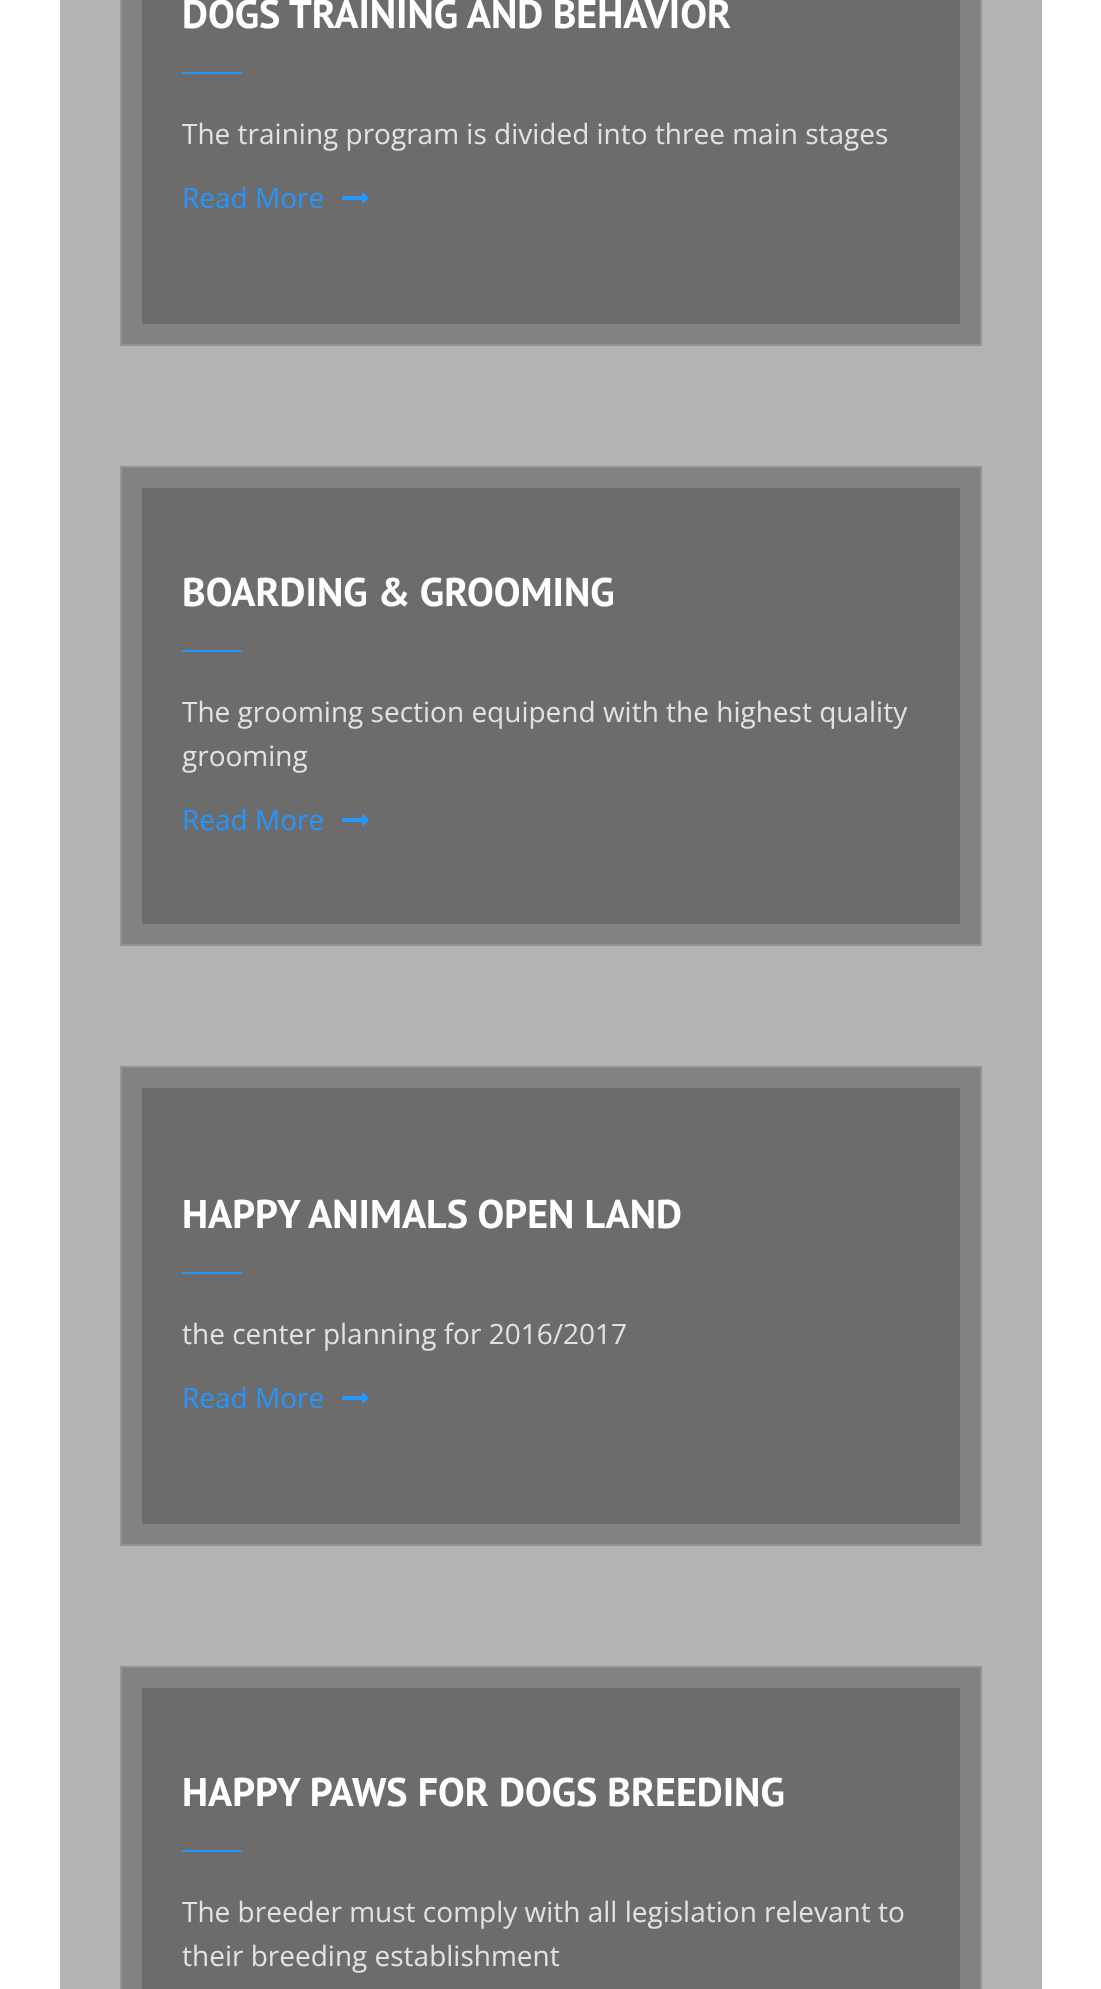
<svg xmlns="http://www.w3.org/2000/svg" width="1101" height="1989">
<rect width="100%" height="100%" fill="#fff"/>
<rect x="60" width="982" height="1989" fill="#b3b3b3"/>
<rect x="132" y="-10" width="838" height="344" fill="#6c6c6c" stroke="#828282" stroke-width="20"/>
<rect x="121" y="-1" width="860" height="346" fill="none" stroke="#949494" stroke-width="2"/>
<text x="182" y="28" style="font-family:PT Sans;font-size:40px;font-weight:bold;fill:#fff">DOGS TRAINING AND BEHAVIOR</text>
<rect x="182" y="72" width="60" height="2" fill="#2696ff"/>
<text x="182" y="144" style="font-family:Open Sans;font-size:28px;fill:#e2e2e2">The training program is divided into three main stages</text>
<text x="182" y="208" style="font-family:Open Sans;font-size:28px;fill:#2696ff">Read More</text>
<image x="342" y="192" width="27" height="12" href="media/1.png"/>
<rect x="132" y="478" width="838" height="456" fill="#6c6c6c" stroke="#828282" stroke-width="20"/>
<rect x="121" y="467" width="860" height="478" fill="none" stroke="#949494" stroke-width="2"/>
<text x="182" y="606" style="font-family:PT Sans;font-size:40px;font-weight:bold;fill:#fff">BOARDING &amp; GROOMING</text>
<rect x="182" y="650" width="60" height="2" fill="#2696ff"/>
<text x="182" y="722" style="font-family:Open Sans;font-size:28px;fill:#e2e2e2">The grooming section equipend with the highest quality</text>
<text x="182" y="766" style="font-family:Open Sans;font-size:28px;fill:#e2e2e2">grooming</text>
<text x="182" y="830" style="font-family:Open Sans;font-size:28px;fill:#2696ff">Read More</text>
<image x="342" y="814" width="27" height="12" href="media/1.png"/>
<rect x="132" y="1078" width="838" height="456" fill="#6c6c6c" stroke="#828282" stroke-width="20"/>
<rect x="121" y="1067" width="860" height="478" fill="none" stroke="#949494" stroke-width="2"/>
<text x="182" y="1228" style="font-family:PT Sans;font-size:40px;font-weight:bold;fill:#fff">HAPPY ANIMALS OPEN LAND</text>
<rect x="182" y="1272" width="60" height="2" fill="#2696ff"/>
<text x="182" y="1344" style="font-family:Open Sans;font-size:28px;fill:#e2e2e2">the center planning for 2016/2017</text>
<text x="182" y="1408" style="font-family:Open Sans;font-size:28px;fill:#2696ff">Read More</text>
<image x="342" y="1392" width="27" height="12" href="media/1.png"/>
<rect x="132" y="1678" width="838" height="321" fill="#6c6c6c" stroke="#828282" stroke-width="20"/>
<rect x="121" y="1667" width="860" height="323" fill="none" stroke="#949494" stroke-width="2"/>
<text x="182" y="1806" style="font-family:PT Sans;font-size:40px;font-weight:bold;fill:#fff">HAPPY PAWS FOR DOGS BREEDING</text>
<rect x="182" y="1850" width="60" height="2" fill="#2696ff"/>
<text x="182" y="1922" style="font-family:Open Sans;font-size:28px;fill:#e2e2e2">The breeder must comply with all legislation relevant to</text>
<text x="182" y="1966" style="font-family:Open Sans;font-size:28px;fill:#e2e2e2">their breeding establishment</text>
</svg>
